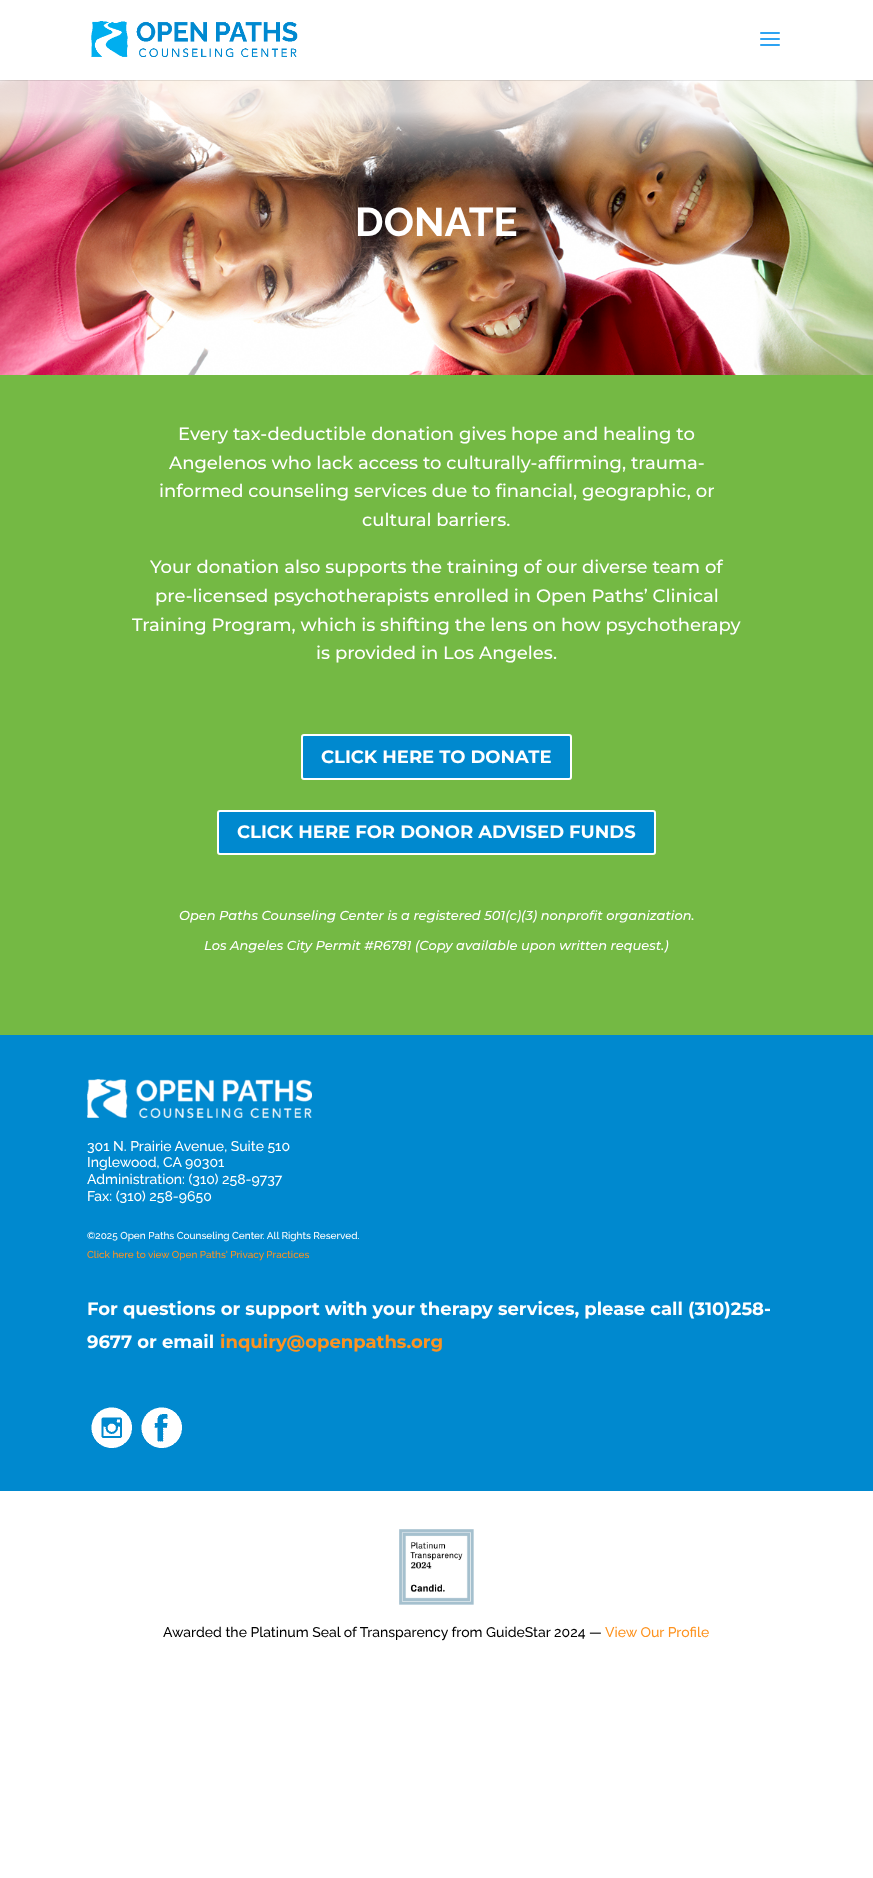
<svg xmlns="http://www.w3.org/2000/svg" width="873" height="1878">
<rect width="100%" height="100%" fill="#fff"/>
<image x="0" y="80" width="873" height="295" href="media/3.png"/>
<rect y="80" width="873" height="1" fill="#0000001a"/>
<image x="91" y="21" width="207" height="36" href="media/1.png"/>
<image x="760" y="32" width="20" height="14" href="media/2.png"/>
<text x="355" y="236" style="font-family:Raleway;font-size:40px;font-weight:bold;fill:#fff">DONATE</text>
<rect y="375" width="873" height="660" fill="#74b944"/>
<text x="178" y="440" style="font-family:Montserrat;font-size:18px;font-weight:500;fill:#fff">Every tax-deductible donation gives hope and healing to</text>
<text x="169" y="469" style="font-family:Montserrat;font-size:18px;font-weight:500;fill:#fff">Angelenos who lack access to culturally-affirming, trauma-</text>
<text x="159" y="497" style="font-family:Montserrat;font-size:18px;font-weight:500;fill:#fff">informed counseling services due to financial, geographic, or</text>
<text x="362" y="526" style="font-family:Montserrat;font-size:18px;font-weight:500;fill:#fff">cultural barriers.</text>
<text x="150" y="573" style="font-family:Montserrat;font-size:18px;font-weight:500;fill:#fff">Your donation also supports the training of our diverse team of</text>
<text x="155" y="602" style="font-family:Montserrat;font-size:18px;font-weight:500;fill:#fff">pre-licensed psychotherapists enrolled in Open Paths’ Clinical</text>
<text x="132" y="631" style="font-family:Montserrat;font-size:18px;font-weight:500;fill:#fff">Training Program, which is shifting the lens on how psychotherapy</text>
<text x="316" y="659" style="font-family:Montserrat;font-size:18px;font-weight:500;fill:#fff">is provided in Los Angeles.</text>
<rect x="302" y="735" width="269" height="44" rx="2" fill="#0089cf" stroke="#fff" stroke-width="2"/>
<text x="321" y="763" style="font-family:Montserrat;font-size:18px;font-weight:bold;fill:#fff">CLICK HERE TO DONATE</text>
<rect x="218" y="811" width="437" height="43" rx="2" fill="#0089cf" stroke="#fff" stroke-width="2"/>
<text x="237" y="838" style="font-family:Montserrat;font-size:18px;font-weight:bold;fill:#fff">CLICK HERE FOR DONOR ADVISED FUNDS</text>
<text x="179" y="920" style="font-family:Montserrat;font-size:13px;font-weight:500;font-style:italic;fill:#fff">Open Paths Counseling Center is a registered 501(c)(3) nonprofit organization.</text>
<text x="204" y="950" style="font-family:Montserrat;font-size:13px;font-weight:500;font-style:italic;fill:#fff">Los Angeles City Permit #R6781 (Copy available upon written request.)</text>
<rect y="1035" width="873" height="456" fill="#0089cf"/>
<image x="87" y="1079" width="225" height="39" href="media/4.png"/>
<text x="87" y="1151" style="font-family:Raleway;font-size:14px;font-weight:500;fill:#fff">301 N. Prairie Avenue, Suite 510</text>
<text x="87" y="1167" style="font-family:Raleway;font-size:14px;font-weight:500;fill:#fff">Inglewood, CA 90301</text>
<text x="87" y="1184" style="font-family:Raleway;font-size:14px;font-weight:500;fill:#fff">Administration: (310) 258-9737</text>
<text x="87" y="1201" style="font-family:Raleway;font-size:14px;font-weight:500;fill:#fff">Fax: (310) 258-9650</text>
<text x="87" y="1239" style="font-family:Raleway;font-size:10px;font-weight:500;fill:#fff">©2025 Open Paths Counseling Center. All Rights Reserved.</text>
<text x="87" y="1258" style="font-family:Raleway;font-size:10px;font-weight:500;fill:#fd9320">Click here to view Open Paths' Privacy Practices</text>
<text x="87" y="1315" style="font-family:Montserrat;font-size:18px;font-weight:bold;fill:#fff">For questions or support with your therapy services, please call (310)258-</text>
<text x="87" y="1348" style="font-family:Montserrat;font-size:18px;font-weight:bold;fill:#fff">9677 or email</text>
<text x="220" y="1348" style="font-family:Montserrat;font-size:18px;font-weight:bold;fill:#fd9320">inquiry@openpaths.org</text>
<image x="91" y="1407" width="41" height="41" href="media/5.png"/>
<image x="141" y="1407" width="41" height="41" href="media/6.png"/>
<image x="399" y="1529" width="75" height="76" href="media/7.png"/>
<text x="163" y="1637" style="font-family:Raleway;font-size:14px;font-weight:500;fill:#000">Awarded the Platinum Seal of Transparency from GuideStar 2024 —</text>
<text x="605" y="1637" style="font-family:Raleway;font-size:14px;font-weight:500;fill:#fd9320">View Our Profile</text>
</svg>
